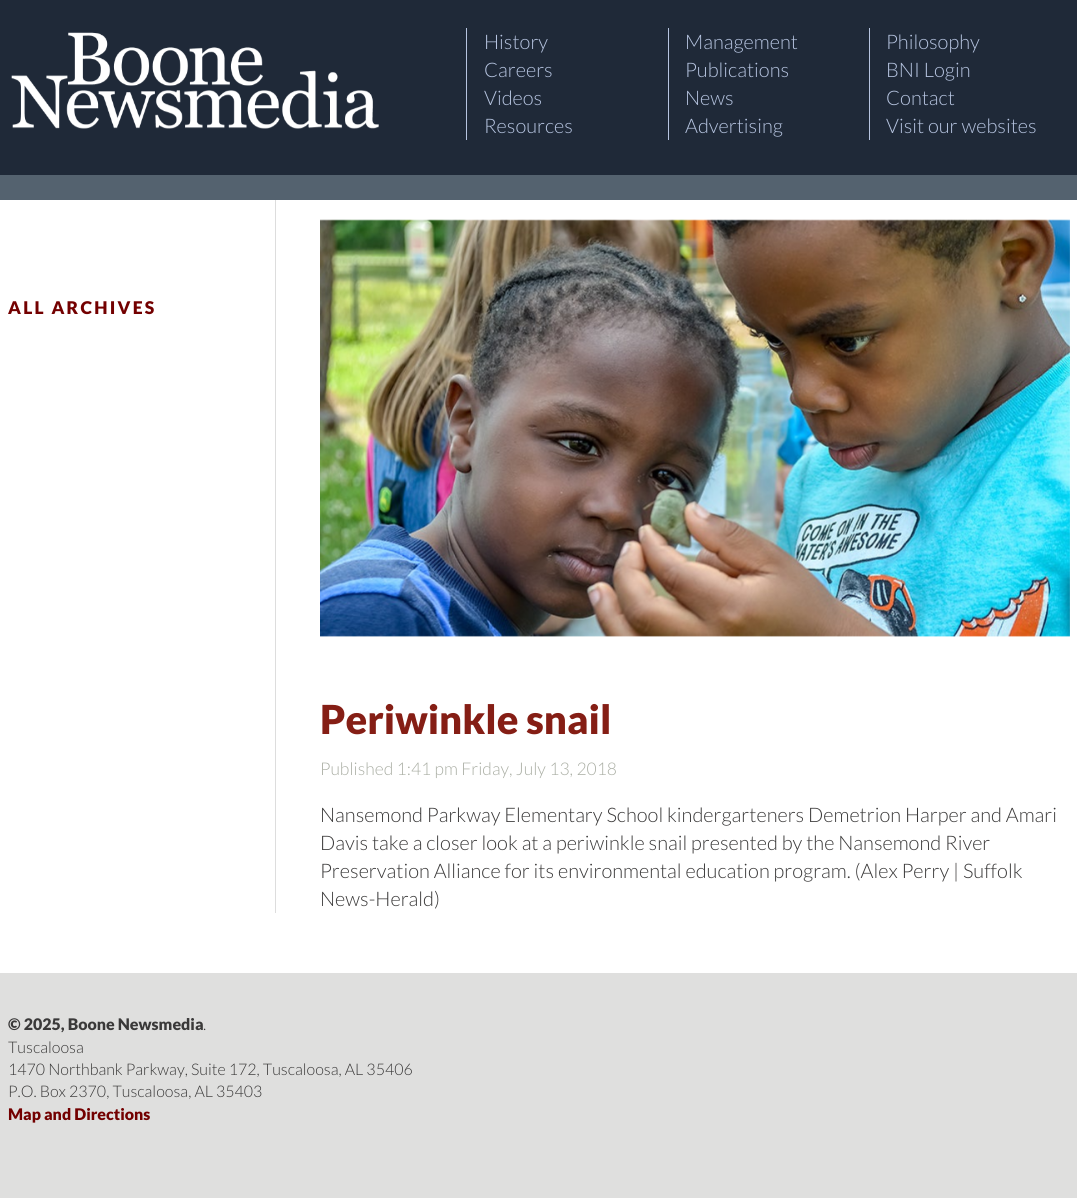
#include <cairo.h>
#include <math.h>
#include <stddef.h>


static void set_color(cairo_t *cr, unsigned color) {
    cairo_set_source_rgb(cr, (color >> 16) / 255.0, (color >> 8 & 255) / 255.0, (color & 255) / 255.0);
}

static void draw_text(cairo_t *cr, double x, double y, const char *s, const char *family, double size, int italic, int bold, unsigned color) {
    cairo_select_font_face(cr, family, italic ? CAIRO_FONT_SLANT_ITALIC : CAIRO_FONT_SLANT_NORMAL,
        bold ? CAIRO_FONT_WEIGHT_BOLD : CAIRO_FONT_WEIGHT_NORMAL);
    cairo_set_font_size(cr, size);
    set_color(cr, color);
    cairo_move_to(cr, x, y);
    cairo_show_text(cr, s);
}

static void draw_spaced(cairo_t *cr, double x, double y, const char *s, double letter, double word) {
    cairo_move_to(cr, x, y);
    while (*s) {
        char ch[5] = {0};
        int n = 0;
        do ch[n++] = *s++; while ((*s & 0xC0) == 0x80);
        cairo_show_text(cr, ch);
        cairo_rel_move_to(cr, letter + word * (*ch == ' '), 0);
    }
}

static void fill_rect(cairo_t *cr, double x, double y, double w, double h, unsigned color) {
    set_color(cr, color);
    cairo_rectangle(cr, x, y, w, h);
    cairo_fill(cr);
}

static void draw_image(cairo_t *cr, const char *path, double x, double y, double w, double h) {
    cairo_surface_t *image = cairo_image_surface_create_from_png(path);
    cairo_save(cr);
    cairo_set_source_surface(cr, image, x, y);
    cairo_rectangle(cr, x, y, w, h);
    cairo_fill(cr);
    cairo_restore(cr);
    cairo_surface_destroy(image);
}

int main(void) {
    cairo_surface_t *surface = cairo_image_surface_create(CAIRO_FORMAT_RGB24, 1077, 1198);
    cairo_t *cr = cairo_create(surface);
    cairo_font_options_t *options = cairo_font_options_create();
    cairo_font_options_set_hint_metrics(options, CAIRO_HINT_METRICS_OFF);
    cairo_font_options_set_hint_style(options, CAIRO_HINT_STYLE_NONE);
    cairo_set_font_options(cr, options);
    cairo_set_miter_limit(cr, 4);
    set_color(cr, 0xDFDFDE);
    cairo_paint(cr);
    fill_rect(cr, 0, 0, 1077, 175, 0x1F2938);
    draw_image(cr, "assets/img1.png", 11, 32, 368, 97);
    fill_rect(cr, 466, 28, 1, 112, 0xB6C4E0);
    draw_text(cr, 484, 49, "History", "Lato Light", 20, 0, 0, 0xB6C4E0);
    fill_rect(cr, 668, 28, 1, 112, 0xB6C4E0);
    draw_text(cr, 685, 49, "Management", "Lato Light", 20, 0, 0, 0xB6C4E0);
    fill_rect(cr, 869, 28, 1, 112, 0xB6C4E0);
    draw_text(cr, 886, 49, "Philosophy", "Lato Light", 20, 0, 0, 0xB6C4E0);
    draw_text(cr, 484, 77, "Careers", "Lato Light", 20, 0, 0, 0xB6C4E0);
    draw_text(cr, 685, 77, "Publications", "Lato Light", 20, 0, 0, 0xB6C4E0);
    draw_text(cr, 886, 77, "BNI Login", "Lato Light", 20, 0, 0, 0xB6C4E0);
    draw_text(cr, 484, 105, "Videos", "Lato Light", 20, 0, 0, 0xB6C4E0);
    draw_text(cr, 685, 105, "News", "Lato Light", 20, 0, 0, 0xB6C4E0);
    draw_text(cr, 886, 105, "Contact", "Lato Light", 20, 0, 0, 0xB6C4E0);
    draw_text(cr, 484, 133, "Resources", "Lato Light", 20, 0, 0, 0xB6C4E0);
    draw_text(cr, 685, 133, "Advertising", "Lato Light", 20, 0, 0, 0xB6C4E0);
    draw_text(cr, 886, 133, "Visit our websites", "Lato Light", 20, 0, 0, 0xB6C4E0);
    fill_rect(cr, 0, 200, 1077, 773, 0xFFFFFF);
    fill_rect(cr, 0, 175, 1077, 25, 0x54626F);
    cairo_select_font_face(cr, "Lato Black", CAIRO_FONT_SLANT_NORMAL, CAIRO_FONT_WEIGHT_NORMAL);
    cairo_set_font_size(cr, 17.5);
    set_color(cr, 0x730000);
    draw_spaced(cr, 8, 314, "ALL ARCHIVES", 2.25, 0);
    fill_rect(cr, 275, 200, 1, 713, 0xDDDDDD);
    draw_image(cr, "assets/img2.png", 320, 219, 750, 418);
    draw_text(cr, 320, 734, "Periwinkle snail", "Lato Black", 40, 0, 0, 0x851E15);
    draw_text(cr, 320, 775, "Published 1:41 pm Friday, July 13, 2018", "Lato Light", 17.5, 0, 0, 0xABAFA5);
    draw_text(cr, 320, 822, "Nansemond Parkway Elementary School kindergarteners Demetrion Harper and Amari", "Lato Light", 20, 0, 0, 0x3A3939);
    draw_text(cr, 320, 850, "Davis take a closer look at a periwinkle snail presented by the Nansemond River", "Lato Light", 20, 0, 0, 0x3A3939);
    draw_text(cr, 320, 878, "Preservation Alliance for its environmental education program. (Alex Perry | Suffolk", "Lato Light", 20, 0, 0, 0x3A3939);
    draw_text(cr, 320, 906, "News-Herald)", "Lato Light", 20, 0, 0, 0x3A3939);
    draw_text(cr, 8, 1030, "© 2025, Boone Newsmedia", "Lato Black", 16, 0, 0, 0x3A3939);
    draw_text(cr, 203, 1030, ".", "Lato Light", 16, 0, 0, 0x3A3939);
    draw_text(cr, 8, 1053, "Tuscaloosa", "Lato Light", 16, 0, 0, 0x3A3939);
    draw_text(cr, 8, 1075, "1470 Northbank Parkway, Suite 172, Tuscaloosa, AL 35406", "Lato Light", 16, 0, 0, 0x3A3939);
    draw_text(cr, 8, 1097, "P.O. Box 2370, Tuscaloosa, AL 35403", "Lato Light", 16, 0, 0, 0x3A3939);
    draw_text(cr, 8, 1120, "Map and Directions", "Lato Black", 16, 0, 0, 0x730000);
    cairo_surface_write_to_png(surface, "output.png");
    cairo_font_options_destroy(options);
    cairo_destroy(cr);
    cairo_surface_destroy(surface);
    return 0;
}
